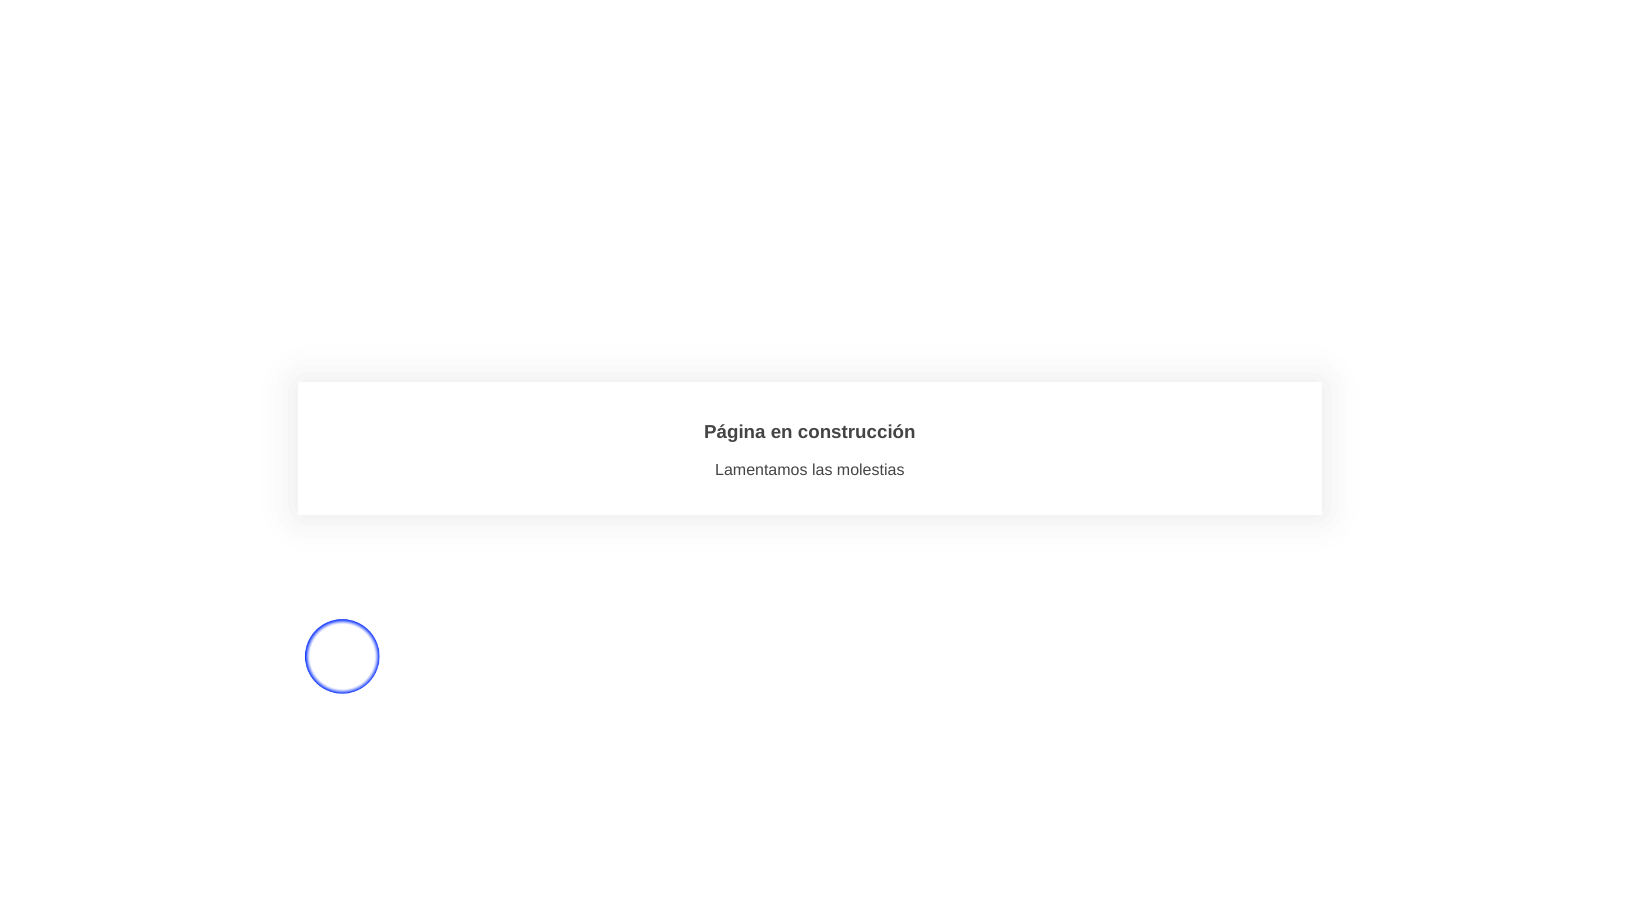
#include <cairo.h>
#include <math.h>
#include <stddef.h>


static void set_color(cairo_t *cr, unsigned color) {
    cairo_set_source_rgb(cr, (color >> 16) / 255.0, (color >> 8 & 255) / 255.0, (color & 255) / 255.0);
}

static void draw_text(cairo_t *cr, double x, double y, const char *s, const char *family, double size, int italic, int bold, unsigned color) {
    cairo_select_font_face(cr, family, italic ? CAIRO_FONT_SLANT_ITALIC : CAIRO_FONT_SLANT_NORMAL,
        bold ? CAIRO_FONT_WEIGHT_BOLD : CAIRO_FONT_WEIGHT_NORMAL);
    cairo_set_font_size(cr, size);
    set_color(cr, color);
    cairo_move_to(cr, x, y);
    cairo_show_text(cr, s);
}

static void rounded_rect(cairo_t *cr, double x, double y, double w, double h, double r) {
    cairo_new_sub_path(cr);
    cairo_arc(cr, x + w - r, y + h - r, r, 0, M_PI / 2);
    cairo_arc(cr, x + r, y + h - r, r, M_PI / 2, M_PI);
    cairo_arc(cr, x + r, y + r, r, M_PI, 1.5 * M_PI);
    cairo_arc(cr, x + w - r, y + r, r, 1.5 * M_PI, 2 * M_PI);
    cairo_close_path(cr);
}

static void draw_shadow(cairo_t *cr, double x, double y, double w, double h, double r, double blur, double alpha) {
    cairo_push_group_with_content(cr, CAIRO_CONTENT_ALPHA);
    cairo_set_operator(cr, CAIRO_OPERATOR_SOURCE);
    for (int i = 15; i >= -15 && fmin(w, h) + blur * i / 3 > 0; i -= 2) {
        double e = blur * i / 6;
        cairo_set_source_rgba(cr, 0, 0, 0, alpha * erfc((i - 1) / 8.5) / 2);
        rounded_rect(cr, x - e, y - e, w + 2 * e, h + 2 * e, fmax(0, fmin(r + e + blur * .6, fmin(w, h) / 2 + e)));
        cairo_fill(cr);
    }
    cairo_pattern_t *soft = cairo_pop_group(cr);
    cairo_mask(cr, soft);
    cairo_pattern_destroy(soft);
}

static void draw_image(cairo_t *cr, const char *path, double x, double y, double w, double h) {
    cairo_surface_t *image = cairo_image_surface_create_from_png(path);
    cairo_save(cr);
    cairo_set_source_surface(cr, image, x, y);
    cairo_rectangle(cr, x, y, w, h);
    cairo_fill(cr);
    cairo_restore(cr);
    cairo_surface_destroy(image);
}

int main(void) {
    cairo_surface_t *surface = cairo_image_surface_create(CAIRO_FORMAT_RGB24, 1652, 897);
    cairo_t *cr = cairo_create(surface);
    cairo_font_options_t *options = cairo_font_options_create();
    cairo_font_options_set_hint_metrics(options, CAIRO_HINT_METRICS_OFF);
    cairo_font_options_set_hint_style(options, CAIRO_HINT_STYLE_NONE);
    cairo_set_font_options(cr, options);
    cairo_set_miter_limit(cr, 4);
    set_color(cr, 0xFFFFFF);
    cairo_paint(cr);
    cairo_save(cr);
    cairo_set_fill_rule(cr, CAIRO_FILL_RULE_EVEN_ODD);
    cairo_new_path(cr);
    cairo_move_to(cr, 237, 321);
    cairo_line_to(cr, 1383, 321);
    cairo_line_to(cr, 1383, 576);
    cairo_line_to(cr, 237, 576);
    cairo_close_path(cr);
    cairo_move_to(cr, 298, 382);
    cairo_line_to(cr, 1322, 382);
    cairo_line_to(cr, 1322, 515);
    cairo_line_to(cr, 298, 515);
    cairo_close_path(cr);
    cairo_clip(cr);
    set_color(cr, 0x000000);
    draw_shadow(cr, 298, 382, 1024, 133, 0, 20, 0.1);
    cairo_restore(cr);
    draw_text(cr, 704, 438, "Página en construcción", "Liberation Sans", 18.75, 0, 1, 0x444444);
    draw_text(cr, 715, 475, "Lamentamos las molestias", "Liberation Sans", 16, 0, 0, 0x444444);
    draw_image(cr, "assets/img1.png", 305, 619, 75, 75);
    cairo_surface_write_to_png(surface, "output.png");
    cairo_font_options_destroy(options);
    cairo_destroy(cr);
    cairo_surface_destroy(surface);
    return 0;
}
